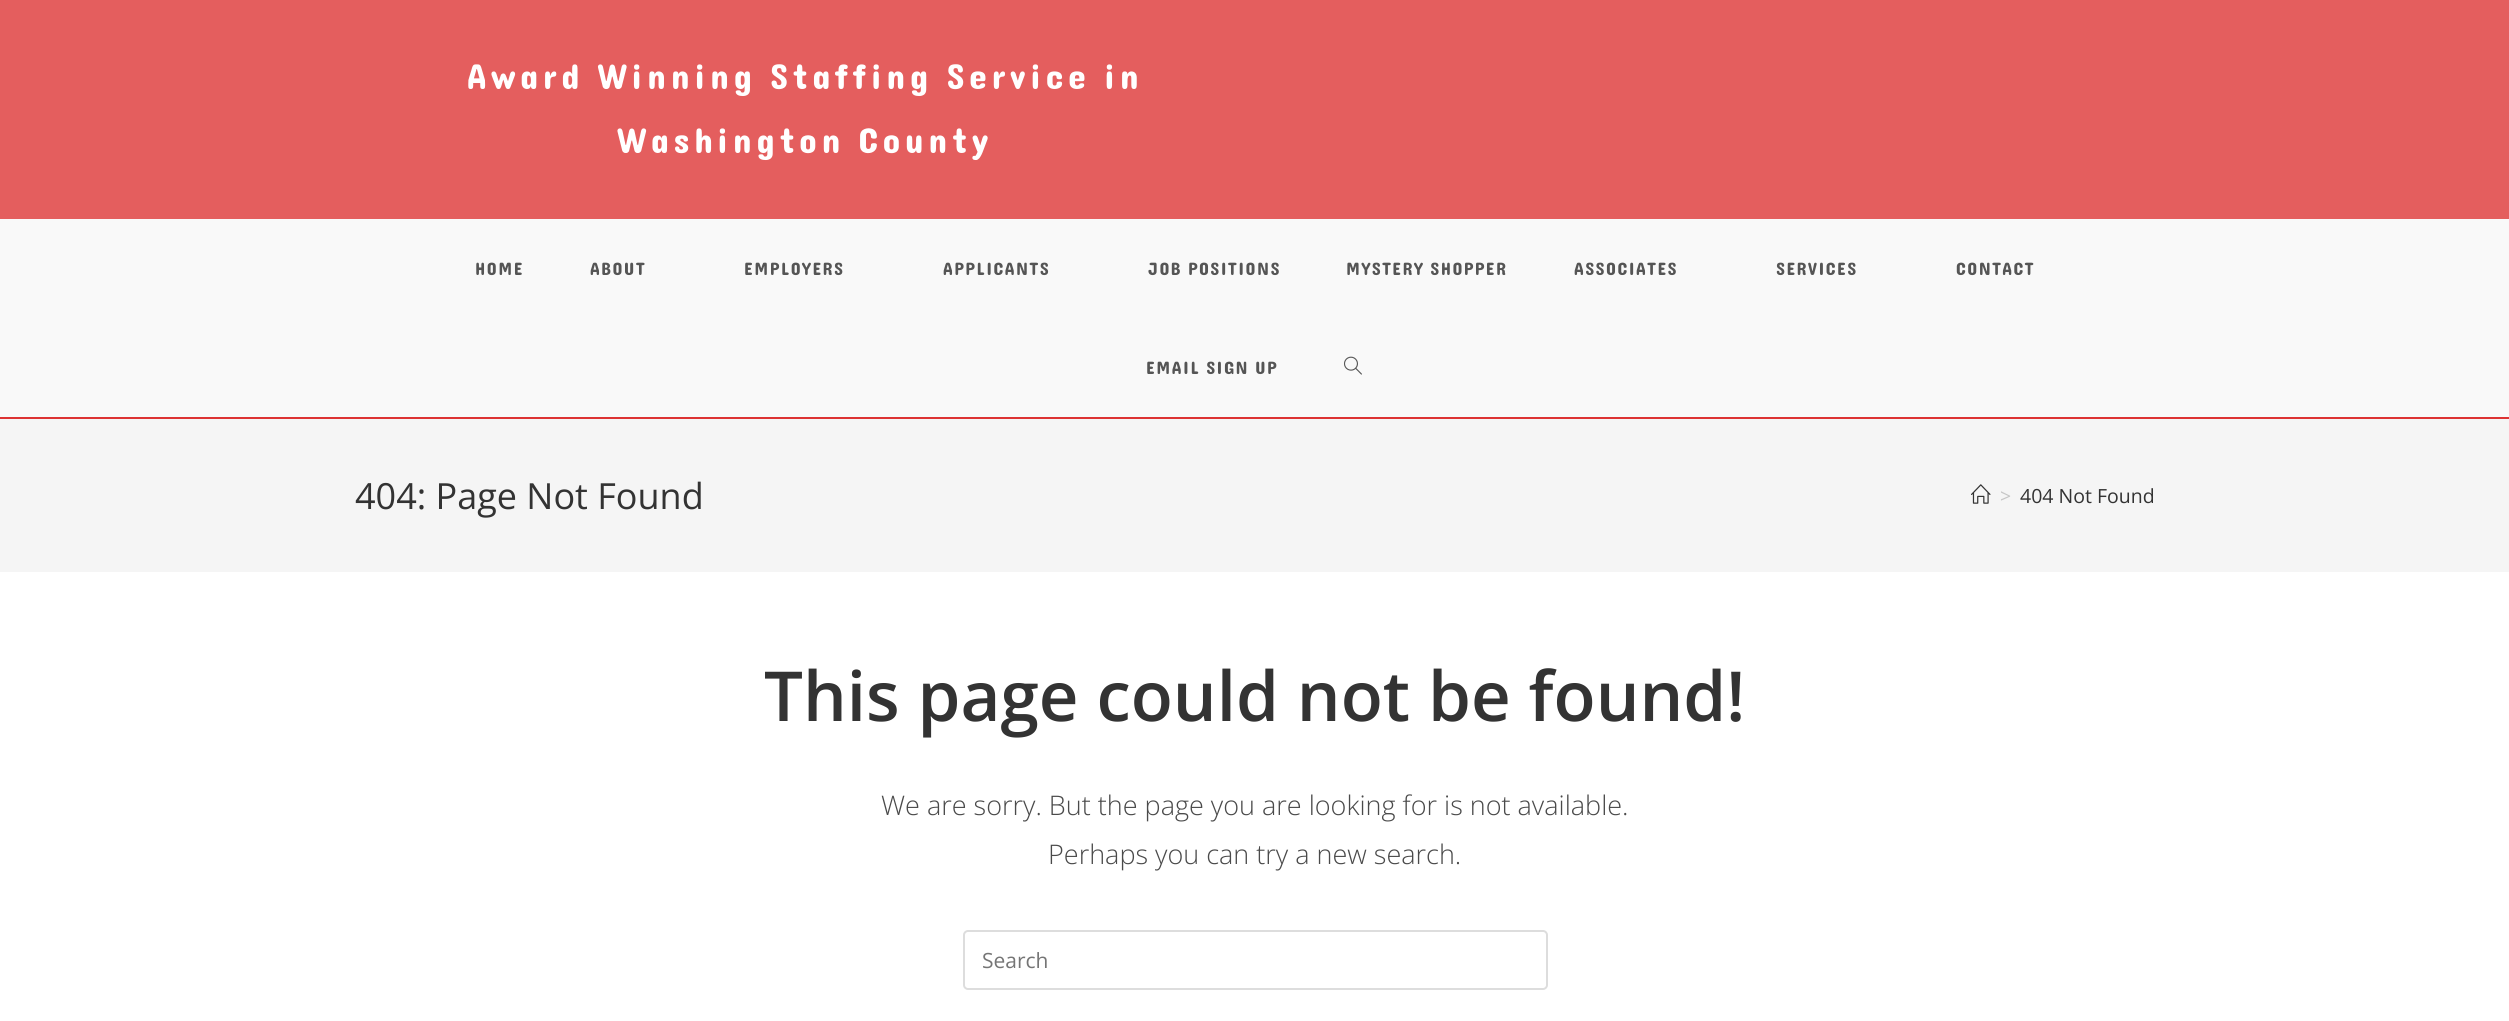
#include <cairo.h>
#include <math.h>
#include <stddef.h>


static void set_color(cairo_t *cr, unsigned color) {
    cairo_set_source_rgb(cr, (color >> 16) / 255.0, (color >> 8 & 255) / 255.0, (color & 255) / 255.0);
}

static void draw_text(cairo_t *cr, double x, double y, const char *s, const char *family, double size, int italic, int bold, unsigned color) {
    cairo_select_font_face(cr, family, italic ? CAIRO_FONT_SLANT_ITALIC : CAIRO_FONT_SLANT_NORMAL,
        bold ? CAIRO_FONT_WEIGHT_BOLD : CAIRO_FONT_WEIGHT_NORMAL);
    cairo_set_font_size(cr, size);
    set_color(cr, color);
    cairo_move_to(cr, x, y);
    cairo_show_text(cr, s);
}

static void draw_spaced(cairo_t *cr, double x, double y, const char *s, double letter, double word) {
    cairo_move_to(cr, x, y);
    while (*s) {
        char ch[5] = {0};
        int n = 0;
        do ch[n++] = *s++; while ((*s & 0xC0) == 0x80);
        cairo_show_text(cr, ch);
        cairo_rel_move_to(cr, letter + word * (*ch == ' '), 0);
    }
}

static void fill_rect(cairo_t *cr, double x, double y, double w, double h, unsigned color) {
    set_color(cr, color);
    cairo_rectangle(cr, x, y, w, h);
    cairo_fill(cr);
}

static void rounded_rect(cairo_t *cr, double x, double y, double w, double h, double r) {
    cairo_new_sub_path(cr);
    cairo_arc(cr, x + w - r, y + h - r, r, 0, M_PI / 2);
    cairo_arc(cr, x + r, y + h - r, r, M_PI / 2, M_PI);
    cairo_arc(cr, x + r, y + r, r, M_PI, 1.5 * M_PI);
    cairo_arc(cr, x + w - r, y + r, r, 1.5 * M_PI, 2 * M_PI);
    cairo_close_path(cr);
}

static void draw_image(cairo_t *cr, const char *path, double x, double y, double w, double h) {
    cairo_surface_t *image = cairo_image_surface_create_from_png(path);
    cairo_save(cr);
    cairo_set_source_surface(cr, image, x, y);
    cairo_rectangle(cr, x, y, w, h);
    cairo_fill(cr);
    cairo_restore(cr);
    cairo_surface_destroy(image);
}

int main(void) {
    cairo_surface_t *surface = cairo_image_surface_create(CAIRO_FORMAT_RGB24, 2509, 1021);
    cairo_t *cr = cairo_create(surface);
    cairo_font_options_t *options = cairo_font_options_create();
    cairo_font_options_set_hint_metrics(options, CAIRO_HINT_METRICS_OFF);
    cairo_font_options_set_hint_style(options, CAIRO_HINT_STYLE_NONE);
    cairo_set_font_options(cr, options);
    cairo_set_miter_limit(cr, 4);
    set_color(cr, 0xFFFFFF);
    cairo_paint(cr);
    fill_rect(cr, 0, 417, 2509, 2, 0xDD3333);
    fill_rect(cr, 0, 0, 2509, 219, 0xE45E5E);
    cairo_select_font_face(cr, "Dangrek", CAIRO_FONT_SLANT_NORMAL, CAIRO_FONT_WEIGHT_NORMAL);
    cairo_set_font_size(cr, 36);
    set_color(cr, 0xFFFFFF);
    draw_spaced(cr, 467, 89, "Award Winning Staffing Service in", 4.65, 0);
    draw_spaced(cr, 617, 153, "Washington County", 4.65, 0);
    fill_rect(cr, 0, 219, 2509, 198, 0xF9F9F9);
    cairo_set_font_size(cr, 18);
    set_color(cr, 0x555555);
    draw_spaced(cr, 475, 275, "HOME", 1.5, 0);
    draw_spaced(cr, 590, 275, "ABOUT", 1.5, 0);
    draw_spaced(cr, 744, 275, "EMPLOYERS", 1.5, 0);
    draw_spaced(cr, 943, 275, "APPLICANTS", 1.5, 0);
    draw_spaced(cr, 1148, 275, "JOB POSITIONS", 1.5, 0);
    draw_spaced(cr, 1346, 275, "MYSTERY SHOPPER", 1.5, 0);
    draw_spaced(cr, 1574, 275, "ASSOCIATES", 1.5, 0);
    draw_spaced(cr, 1776, 275, "SERVICES", 1.5, 0);
    draw_spaced(cr, 1956, 275, "CONTACT", 1.5, 0);
    draw_spaced(cr, 1146, 374, "EMAIL SIGN UP", 1.5, 0);
    draw_image(cr, "assets/img1.png", 1344, 356, 18, 19);
    fill_rect(cr, 0, 419, 2509, 153, 0xF5F5F5);
    draw_text(cr, 355, 509, "404: Page Not Found", "Open Sans", 36, 0, 0, 0x333333);
    draw_image(cr, "assets/img2.png", 1971, 484, 20, 20);
    draw_text(cr, 2000, 503, ">", "Open Sans", 19.5, 0, 0, 0xC6C6C6);
    draw_text(cr, 2020, 503, "404 Not Found", "Open Sans", 19.5, 0, 0, 0x333333);
    draw_text(cr, 764, 721, "This page could not be found!", "Open Sans SemiBold", 69, 0, 0, 0x333333);
    draw_text(cr, 881, 815, "We are sorry. But the page you are looking for is not available.", "Open Sans Light", 27, 0, 0, 0x4A4A4A);
    draw_text(cr, 1048, 864, "Perhaps you can try a new search.", "Open Sans Light", 27, 0, 0, 0x4A4A4A);
    rounded_rect(cr, 964, 931, 583, 58, 4);
    set_color(cr, 0xDDDDDD);
    cairo_stroke(cr);
    draw_text(cr, 982, 968, "Search", "Open Sans", 21, 0, 0, 0x757575);
    cairo_surface_write_to_png(surface, "output.png");
    cairo_font_options_destroy(options);
    cairo_destroy(cr);
    cairo_surface_destroy(surface);
    return 0;
}
